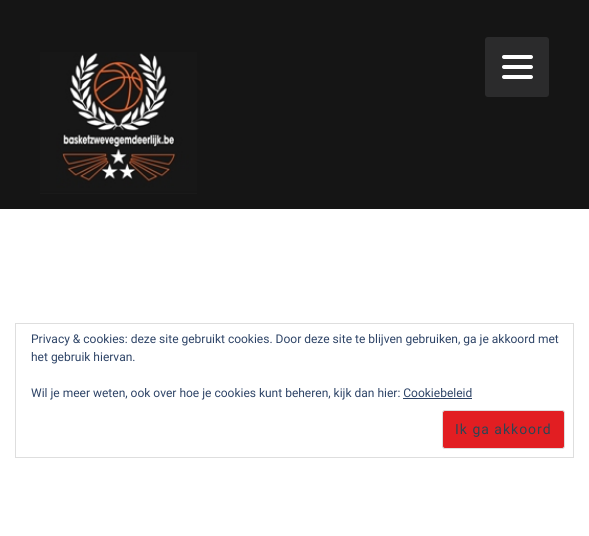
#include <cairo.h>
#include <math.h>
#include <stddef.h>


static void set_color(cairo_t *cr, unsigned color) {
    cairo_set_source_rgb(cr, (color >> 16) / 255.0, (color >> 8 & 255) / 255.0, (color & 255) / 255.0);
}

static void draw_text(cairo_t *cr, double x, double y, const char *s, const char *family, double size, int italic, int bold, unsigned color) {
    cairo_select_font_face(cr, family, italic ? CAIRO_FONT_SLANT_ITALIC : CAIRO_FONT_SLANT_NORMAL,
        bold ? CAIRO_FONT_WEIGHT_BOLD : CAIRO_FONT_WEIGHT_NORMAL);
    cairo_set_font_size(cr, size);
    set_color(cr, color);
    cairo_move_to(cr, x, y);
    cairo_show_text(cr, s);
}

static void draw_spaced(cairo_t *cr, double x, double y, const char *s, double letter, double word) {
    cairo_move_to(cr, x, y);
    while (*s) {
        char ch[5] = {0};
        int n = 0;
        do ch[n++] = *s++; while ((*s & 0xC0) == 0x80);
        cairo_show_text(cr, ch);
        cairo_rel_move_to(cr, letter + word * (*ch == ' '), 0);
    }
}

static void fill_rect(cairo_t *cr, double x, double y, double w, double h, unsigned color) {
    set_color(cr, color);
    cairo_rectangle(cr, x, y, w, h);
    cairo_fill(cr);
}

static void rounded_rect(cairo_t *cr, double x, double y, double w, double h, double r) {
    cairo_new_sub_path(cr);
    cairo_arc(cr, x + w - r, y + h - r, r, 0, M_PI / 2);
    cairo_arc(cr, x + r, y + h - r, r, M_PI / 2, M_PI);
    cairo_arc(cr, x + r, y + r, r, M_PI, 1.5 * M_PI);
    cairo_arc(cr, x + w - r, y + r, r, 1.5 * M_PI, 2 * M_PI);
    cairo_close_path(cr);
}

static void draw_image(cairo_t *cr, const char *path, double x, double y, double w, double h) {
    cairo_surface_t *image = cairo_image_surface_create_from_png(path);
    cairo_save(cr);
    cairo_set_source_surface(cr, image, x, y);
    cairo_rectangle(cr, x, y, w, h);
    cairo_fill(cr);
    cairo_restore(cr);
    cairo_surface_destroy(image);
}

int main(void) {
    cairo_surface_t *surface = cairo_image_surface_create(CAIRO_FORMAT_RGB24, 589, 536);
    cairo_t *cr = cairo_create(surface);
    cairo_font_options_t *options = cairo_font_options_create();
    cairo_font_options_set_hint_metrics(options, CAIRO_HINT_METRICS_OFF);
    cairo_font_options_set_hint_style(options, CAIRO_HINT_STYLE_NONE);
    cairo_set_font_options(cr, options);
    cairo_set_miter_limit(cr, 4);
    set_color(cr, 0xFFFFFF);
    cairo_paint(cr);
    fill_rect(cr, 0, 0, 589, 209, 0x151515);
    draw_image(cr, "assets/img1.png", 40, 52, 157, 142);
    set_color(cr, 0x2B2B2C);
    rounded_rect(cr, 485, 37, 64, 60, 3);
    cairo_fill(cr);
    set_color(cr, 0xFFFFFF);
    rounded_rect(cr, 502, 55, 31, 4, 2);
    cairo_fill(cr);
    rounded_rect(cr, 502, 65, 31, 4, 2);
    cairo_fill(cr);
    rounded_rect(cr, 502, 75, 31, 4, 2);
    cairo_fill(cr);
    cairo_rectangle(cr, 15.5, 323.5, 558, 134);
    set_color(cr, 0xDEDEDE);
    cairo_set_line_width(cr, 1);
    cairo_stroke(cr);
    draw_text(cr, 31, 343, "Privacy & cookies: deze site gebruikt cookies. Door deze site te blijven gebruiken, ga je akkoord met", "Roboto", 12, 0, 0, 0x2E4467);
    draw_text(cr, 31, 361, "het gebruik hiervan.", "Roboto", 12, 0, 0, 0x2E4467);
    draw_text(cr, 31, 397, "Wil je meer weten, ook over hoe je cookies kunt beheren, kijk dan hier: Cookiebeleid", "Roboto", 12, 0, 0, 0x2E4467);
    fill_rect(cr, 403, 398, 69, 1, 0x2E4467);
    set_color(cr, 0xE21E22);
    rounded_rect(cr, 442.5, 410.5, 122, 38, 2.5);
    cairo_fill_preserve(cr);
    set_color(cr, 0xDEDEDE);
    cairo_stroke(cr);
    cairo_set_font_size(cr, 14);
    set_color(cr, 0x2E4453);
    draw_spaced(cr, 455, 434, "Ik ga akkoord", 1, 0);
    cairo_surface_write_to_png(surface, "output.png");
    cairo_font_options_destroy(options);
    cairo_destroy(cr);
    cairo_surface_destroy(surface);
    return 0;
}
